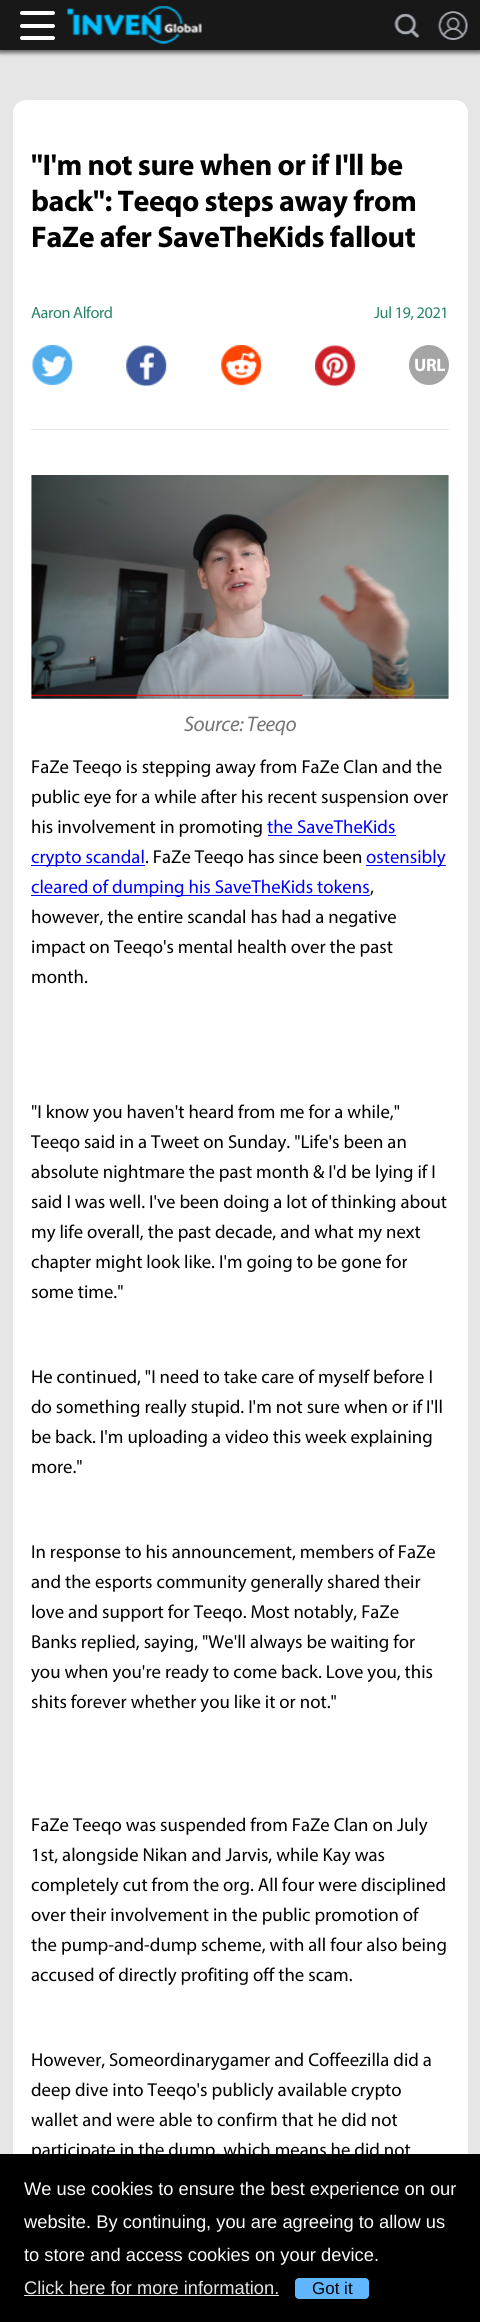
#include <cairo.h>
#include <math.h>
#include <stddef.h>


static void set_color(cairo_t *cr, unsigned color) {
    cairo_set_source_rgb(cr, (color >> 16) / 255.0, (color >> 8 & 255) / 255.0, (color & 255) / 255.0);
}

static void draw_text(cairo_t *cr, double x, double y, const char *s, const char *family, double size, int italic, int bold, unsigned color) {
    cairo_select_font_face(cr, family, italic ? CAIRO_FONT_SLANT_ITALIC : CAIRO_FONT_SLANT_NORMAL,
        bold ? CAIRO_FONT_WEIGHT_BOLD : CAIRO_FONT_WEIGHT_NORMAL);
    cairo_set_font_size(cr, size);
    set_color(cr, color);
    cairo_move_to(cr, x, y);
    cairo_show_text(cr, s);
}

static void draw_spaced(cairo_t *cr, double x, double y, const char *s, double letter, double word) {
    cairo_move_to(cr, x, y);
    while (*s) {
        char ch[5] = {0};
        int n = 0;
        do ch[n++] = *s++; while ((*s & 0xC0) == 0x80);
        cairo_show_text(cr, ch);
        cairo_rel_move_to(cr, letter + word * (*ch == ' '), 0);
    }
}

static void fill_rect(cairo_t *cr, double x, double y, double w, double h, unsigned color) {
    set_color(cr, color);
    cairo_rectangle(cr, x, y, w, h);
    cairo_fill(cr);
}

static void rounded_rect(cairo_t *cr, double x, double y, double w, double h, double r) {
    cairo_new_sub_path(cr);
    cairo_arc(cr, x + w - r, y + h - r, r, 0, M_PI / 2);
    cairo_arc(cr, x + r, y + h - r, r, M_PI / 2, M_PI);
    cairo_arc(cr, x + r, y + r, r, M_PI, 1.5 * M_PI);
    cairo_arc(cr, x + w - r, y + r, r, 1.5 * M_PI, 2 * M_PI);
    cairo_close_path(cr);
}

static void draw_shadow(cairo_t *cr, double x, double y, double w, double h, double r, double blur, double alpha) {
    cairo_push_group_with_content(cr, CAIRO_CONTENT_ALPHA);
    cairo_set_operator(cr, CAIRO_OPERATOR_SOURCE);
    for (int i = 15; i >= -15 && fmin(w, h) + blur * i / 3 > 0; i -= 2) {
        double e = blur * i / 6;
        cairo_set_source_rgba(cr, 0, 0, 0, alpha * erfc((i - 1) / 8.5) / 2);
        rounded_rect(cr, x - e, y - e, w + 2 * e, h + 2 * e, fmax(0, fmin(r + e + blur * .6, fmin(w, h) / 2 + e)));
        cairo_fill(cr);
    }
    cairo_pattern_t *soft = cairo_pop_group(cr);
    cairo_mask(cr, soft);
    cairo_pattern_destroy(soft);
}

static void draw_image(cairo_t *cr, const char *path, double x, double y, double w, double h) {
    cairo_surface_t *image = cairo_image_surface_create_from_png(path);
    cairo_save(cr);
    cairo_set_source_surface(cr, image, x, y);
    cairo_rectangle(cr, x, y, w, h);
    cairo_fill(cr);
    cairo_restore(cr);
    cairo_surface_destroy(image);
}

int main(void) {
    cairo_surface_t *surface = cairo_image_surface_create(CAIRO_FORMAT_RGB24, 480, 2322);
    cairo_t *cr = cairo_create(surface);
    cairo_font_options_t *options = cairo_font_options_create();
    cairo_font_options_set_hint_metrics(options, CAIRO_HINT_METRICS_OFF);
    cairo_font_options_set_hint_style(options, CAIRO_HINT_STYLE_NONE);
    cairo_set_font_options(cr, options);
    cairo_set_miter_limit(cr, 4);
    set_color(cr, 0xE6E6E6);
    cairo_paint(cr);
    set_color(cr, 0x464646);
    draw_shadow(cr, -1, 0, 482, 53, 0, 2, 0.8);
    fill_rect(cr, 0, 0, 480, 50, 0x181818);
    set_color(cr, 0xFFFFFF);
    rounded_rect(cr, 20, 11, 35, 4, 2);
    cairo_fill(cr);
    rounded_rect(cr, 20, 24, 35, 4, 2);
    cairo_fill(cr);
    rounded_rect(cr, 20, 36, 35, 4, 2);
    cairo_fill(cr);
    draw_image(cr, "assets/img1.png", 67, 6, 135, 38);
    draw_image(cr, "assets/img2.png", 394, 13, 26, 25);
    draw_image(cr, "assets/img3.png", 438, 11, 30, 29);
    rounded_rect(cr, 13, 100, 455, 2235, 13);
    cairo_fill(cr);
    fill_rect(cr, 31, 429, 418, 1, 0xE5E5E5);
    cairo_select_font_face(cr, "Myriad", CAIRO_FONT_SLANT_NORMAL, CAIRO_FONT_WEIGHT_BOLD);
    cairo_set_font_size(cr, 30);
    set_color(cr, 0x000000);
    draw_spaced(cr, 31, 175, "\"I'm not sure when or if I'll be", -0.4, 0);
    draw_spaced(cr, 31, 211, "back\": Teeqo steps away from", -0.4, 0);
    draw_spaced(cr, 31, 247, "FaZe afer SaveTheKids fallout", -0.4, 0);
    cairo_select_font_face(cr, "Myriad", CAIRO_FONT_SLANT_NORMAL, CAIRO_FONT_WEIGHT_NORMAL);
    cairo_set_font_size(cr, 16.25);
    set_color(cr, 0x2A836A);
    draw_spaced(cr, 31, 318, "Aaron Alford", -0.4, 0);
    draw_spaced(cr, 374, 318, "Jul 19, 2021", -0.4, 0);
    draw_image(cr, "assets/img4.png", 32, 345, 41, 40);
    draw_image(cr, "assets/img5.png", 126, 345, 41, 42);
    draw_image(cr, "assets/img6.png", 221, 345, 41, 41);
    draw_image(cr, "assets/img7.png", 315, 345, 40, 42);
    set_color(cr, 0xA5A5A5);
    cairo_arc(cr, 429, 365, 20, 0, 2 * M_PI);
    cairo_fill(cr);
    cairo_select_font_face(cr, "Myriad", CAIRO_FONT_SLANT_NORMAL, CAIRO_FONT_WEIGHT_BOLD);
    cairo_set_font_size(cr, 18);
    set_color(cr, 0xFFFFFF);
    draw_spaced(cr, 414, 371, "URL", -0.4, 0);
    draw_image(cr, "assets/img8.png", 31, 475, 418, 224);
    cairo_select_font_face(cr, "Myriad", CAIRO_FONT_SLANT_ITALIC, CAIRO_FONT_WEIGHT_NORMAL);
    cairo_set_font_size(cr, 21.25);
    set_color(cr, 0x757575);
    draw_spaced(cr, 184, 731, "Source: Teeqo", -0.4, 0);
    draw_text(cr, 31, 773, "FaZe Teeqo is stepping away from FaZe Clan and the", "Myriad", 18.75, 0, 0, 0x000000);
    draw_text(cr, 31, 803, "public eye for a while after his recent suspension over", "Myriad", 18.75, 0, 0, 0x000000);
    draw_text(cr, 31, 833, "his involvement in promoting", "Myriad", 18.75, 0, 0, 0x000000);
    draw_text(cr, 267, 833, "the SaveTheKids", "Myriad", 18.75, 0, 0, 0x0000FF);
    fill_rect(cr, 268, 835, 128, 1, 0x0000FF);
    fill_rect(cr, 31, 865, 114, 1, 0x0000FF);
    draw_text(cr, 31, 863, "crypto scandal", "Myriad", 18.75, 0, 0, 0x0000FF);
    draw_text(cr, 145, 863, ". FaZe Teeqo has since been", "Myriad", 18.75, 0, 0, 0x000000);
    fill_rect(cr, 366, 865, 80, 1, 0x0000FF);
    draw_text(cr, 366, 863, "ostensibly", "Myriad", 18.75, 0, 0, 0x0000FF);
    fill_rect(cr, 31, 895, 339, 1, 0x0000FF);
    draw_text(cr, 31, 893, "cleared of dumping his SaveTheKids tokens", "Myriad", 18.75, 0, 0, 0x0000FF);
    draw_text(cr, 370, 893, ",", "Myriad", 18.75, 0, 0, 0x000000);
    draw_text(cr, 31, 923, "however, the entire scandal has had a negative", "Myriad", 18.75, 0, 0, 0x000000);
    draw_text(cr, 31, 953, "impact on Teeqo's mental health over the past", "Myriad", 18.75, 0, 0, 0x000000);
    draw_text(cr, 31, 983, "month.", "Myriad", 18.75, 0, 0, 0x000000);
    draw_text(cr, 31, 1118, "\"I know you haven't heard from me for a while,\"", "Myriad", 18.75, 0, 0, 0x000000);
    draw_text(cr, 31, 1148, "Teeqo said in a Tweet on Sunday. \"Life's been an", "Myriad", 18.75, 0, 0, 0x000000);
    draw_text(cr, 31, 1178, "absolute nightmare the past month & I'd be lying if I", "Myriad", 18.75, 0, 0, 0x000000);
    draw_text(cr, 31, 1208, "said I was well. I've been doing a lot of thinking about", "Myriad", 18.75, 0, 0, 0x000000);
    draw_text(cr, 31, 1238, "my life overall, the past decade, and what my next", "Myriad", 18.75, 0, 0, 0x000000);
    draw_text(cr, 31, 1268, "chapter might look like. I'm going to be gone for", "Myriad", 18.75, 0, 0, 0x000000);
    draw_text(cr, 31, 1298, "some time.\"", "Myriad", 18.75, 0, 0, 0x000000);
    draw_text(cr, 31, 1383, "He continued, \"I need to take care of myself before I", "Myriad", 18.75, 0, 0, 0x000000);
    draw_text(cr, 31, 1413, "do something really stupid. I'm not sure when or if I'll", "Myriad", 18.75, 0, 0, 0x000000);
    draw_text(cr, 31, 1443, "be back. I'm uploading a video this week explaining", "Myriad", 18.75, 0, 0, 0x000000);
    draw_text(cr, 31, 1473, "more.\"", "Myriad", 18.75, 0, 0, 0x000000);
    draw_text(cr, 31, 1558, "In response to his announcement, members of FaZe", "Myriad", 18.75, 0, 0, 0x000000);
    draw_text(cr, 31, 1588, "and the esports community generally shared their", "Myriad", 18.75, 0, 0, 0x000000);
    draw_text(cr, 31, 1618, "love and support for Teeqo. Most notably, FaZe", "Myriad", 18.75, 0, 0, 0x000000);
    draw_text(cr, 31, 1648, "Banks replied, saying, \"We'll always be waiting for", "Myriad", 18.75, 0, 0, 0x000000);
    draw_text(cr, 31, 1678, "you when you're ready to come back. Love you, this", "Myriad", 18.75, 0, 0, 0x000000);
    draw_text(cr, 31, 1708, "shits forever whether you like it or not.\"", "Myriad", 18.75, 0, 0, 0x000000);
    draw_text(cr, 31, 1831, "FaZe Teeqo was suspended from FaZe Clan on July", "Myriad", 18.75, 0, 0, 0x000000);
    draw_text(cr, 31, 1861, "1st, alongside Nikan and Jarvis, while Kay was", "Myriad", 18.75, 0, 0, 0x000000);
    draw_text(cr, 31, 1891, "completely cut from the org. All four were disciplined", "Myriad", 18.75, 0, 0, 0x000000);
    draw_text(cr, 31, 1921, "over their involvement in the public promotion of", "Myriad", 18.75, 0, 0, 0x000000);
    draw_text(cr, 31, 1951, "the pump-and-dump scheme, with all four also being", "Myriad", 18.75, 0, 0, 0x000000);
    draw_text(cr, 31, 1981, "accused of directly profiting off the scam.", "Myriad", 18.75, 0, 0, 0x000000);
    draw_text(cr, 31, 2066, "However, Someordinarygamer and Coffeezilla did a", "Myriad", 18.75, 0, 0, 0x000000);
    draw_text(cr, 31, 2096, "deep dive into Teeqo's publicly available crypto", "Myriad", 18.75, 0, 0, 0x000000);
    draw_text(cr, 31, 2126, "wallet and were able to confirm that he did not", "Myriad", 18.75, 0, 0, 0x000000);
    draw_text(cr, 31, 2156, "participate in the dump, which means he did not", "Myriad", 18.75, 0, 0, 0x000000);
    fill_rect(cr, 0, 2154, 480, 168, 0x000000);
    draw_text(cr, 24, 2195, "We use cookies to ensure the best experience on our", "Liberation Sans", 18.3, 0, 0, 0xFFFFFF);
    draw_text(cr, 24, 2228, "website. By continuing, you are agreeing to allow us", "Liberation Sans", 18.3, 0, 0, 0xFFFFFF);
    draw_text(cr, 24, 2261, "to store and access cookies on your device.", "Liberation Sans", 18.3, 0, 0, 0xFFFFFF);
    draw_text(cr, 24, 2294, "Click here for more information.", "Liberation Sans", 18.3, 0, 0, 0xE6E6E6);
    fill_rect(cr, 24, 2295, 255, 1, 0xE6E6E6);
    set_color(cr, 0x61B7FF);
    rounded_rect(cr, 295, 2278, 74, 21, 4);
    cairo_fill(cr);
    draw_text(cr, 312, 2294, "Got it", "Liberation Sans", 17, 0, 0, 0x000000);
    cairo_surface_write_to_png(surface, "output.png");
    cairo_font_options_destroy(options);
    cairo_destroy(cr);
    cairo_surface_destroy(surface);
    return 0;
}
